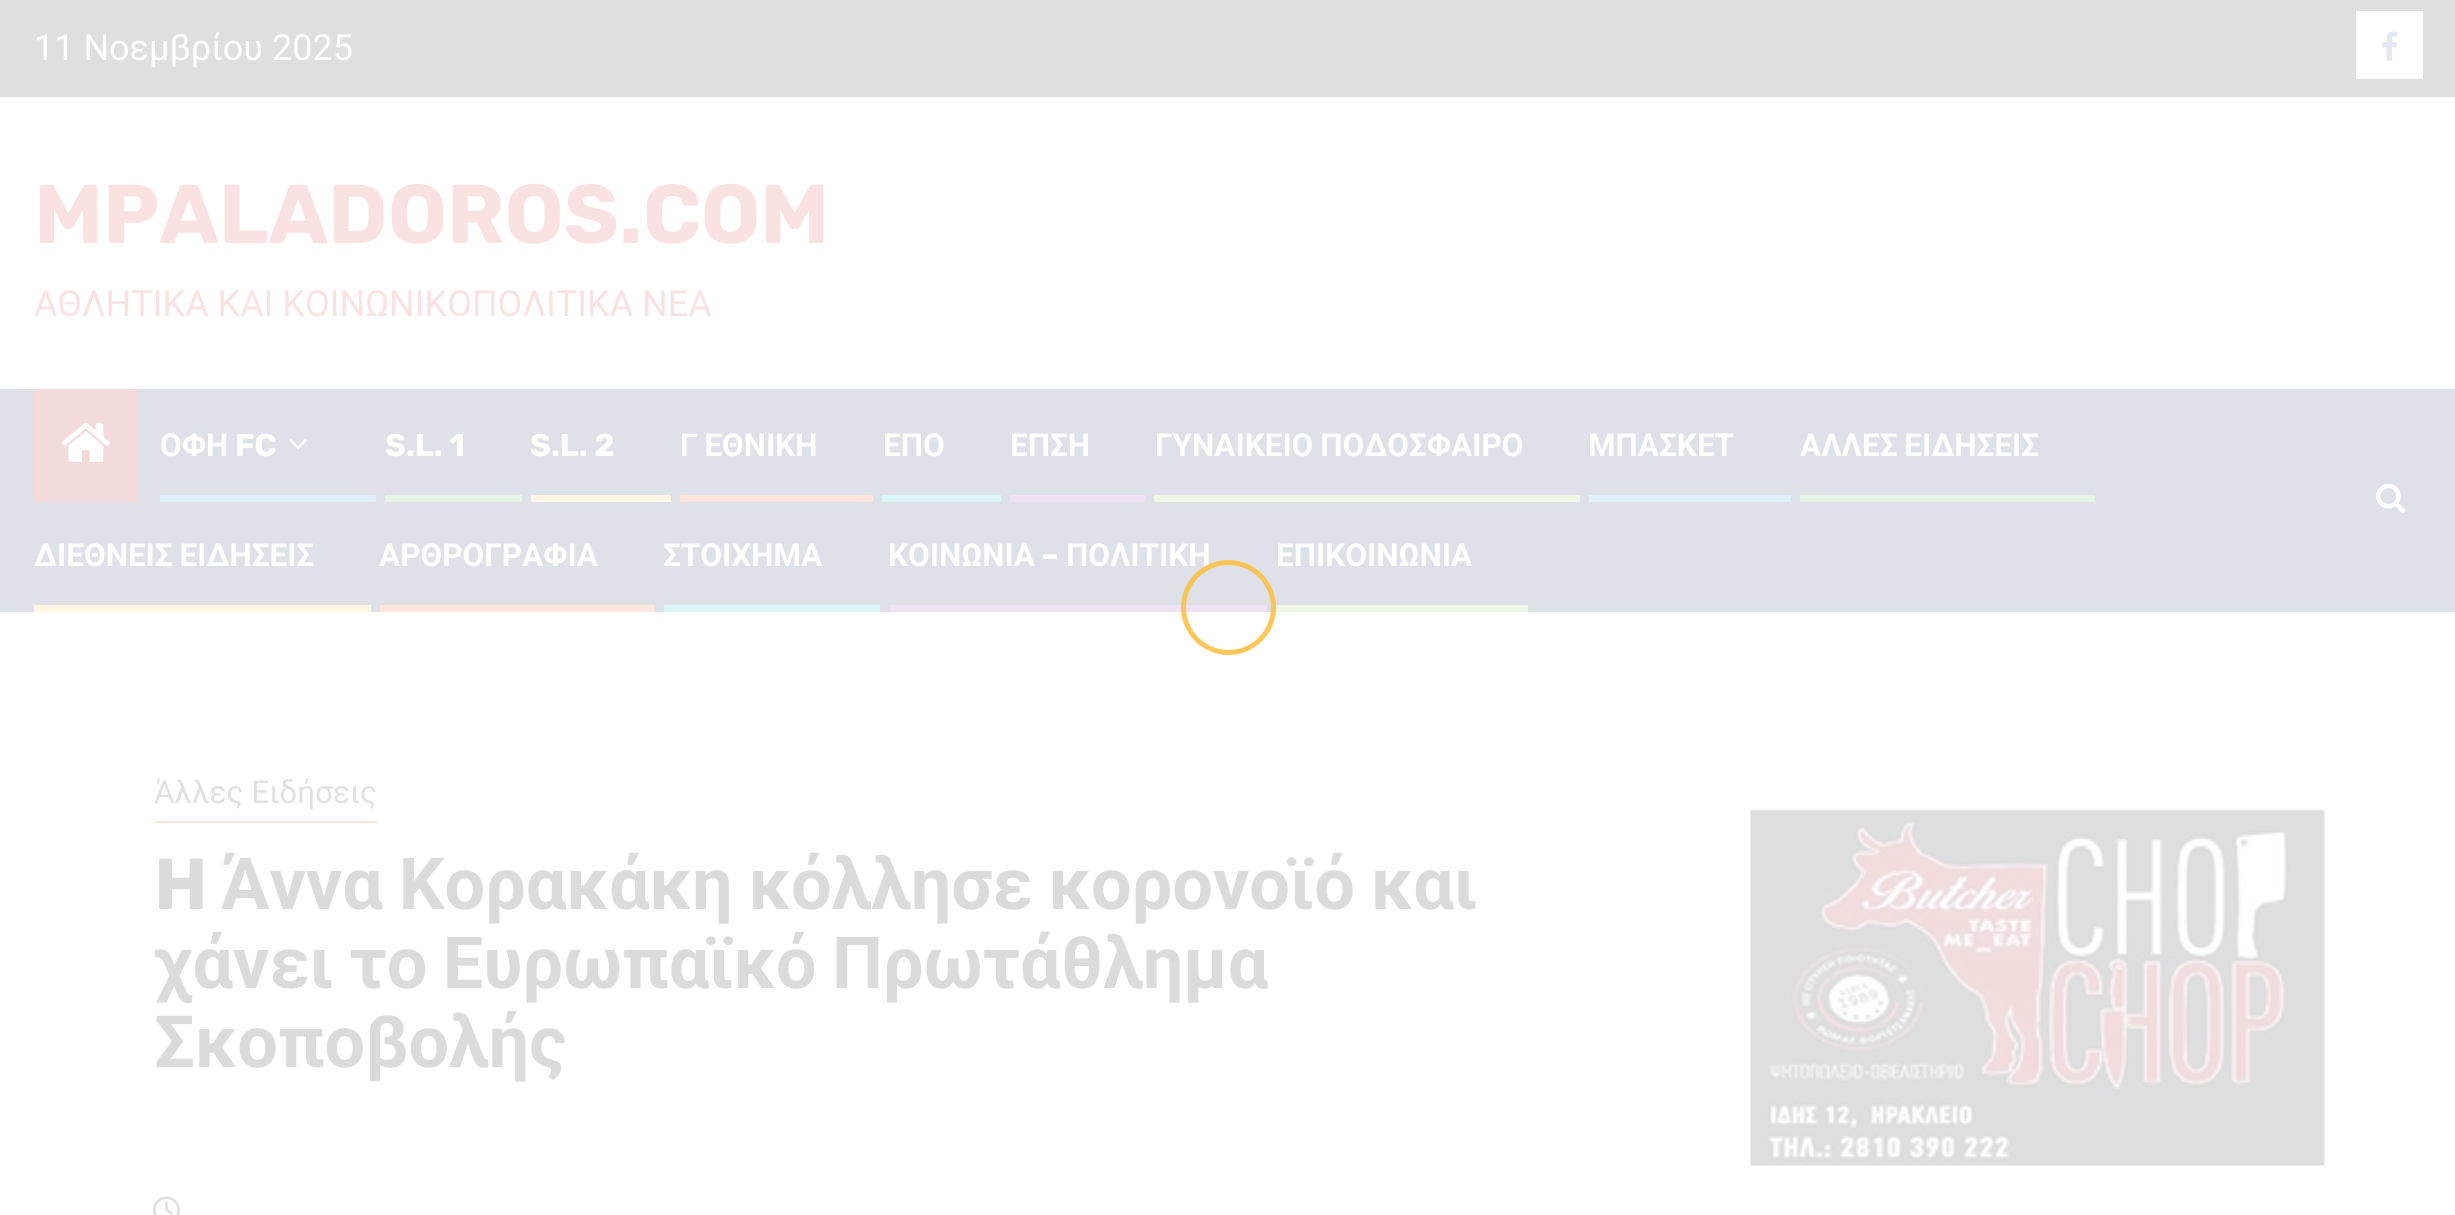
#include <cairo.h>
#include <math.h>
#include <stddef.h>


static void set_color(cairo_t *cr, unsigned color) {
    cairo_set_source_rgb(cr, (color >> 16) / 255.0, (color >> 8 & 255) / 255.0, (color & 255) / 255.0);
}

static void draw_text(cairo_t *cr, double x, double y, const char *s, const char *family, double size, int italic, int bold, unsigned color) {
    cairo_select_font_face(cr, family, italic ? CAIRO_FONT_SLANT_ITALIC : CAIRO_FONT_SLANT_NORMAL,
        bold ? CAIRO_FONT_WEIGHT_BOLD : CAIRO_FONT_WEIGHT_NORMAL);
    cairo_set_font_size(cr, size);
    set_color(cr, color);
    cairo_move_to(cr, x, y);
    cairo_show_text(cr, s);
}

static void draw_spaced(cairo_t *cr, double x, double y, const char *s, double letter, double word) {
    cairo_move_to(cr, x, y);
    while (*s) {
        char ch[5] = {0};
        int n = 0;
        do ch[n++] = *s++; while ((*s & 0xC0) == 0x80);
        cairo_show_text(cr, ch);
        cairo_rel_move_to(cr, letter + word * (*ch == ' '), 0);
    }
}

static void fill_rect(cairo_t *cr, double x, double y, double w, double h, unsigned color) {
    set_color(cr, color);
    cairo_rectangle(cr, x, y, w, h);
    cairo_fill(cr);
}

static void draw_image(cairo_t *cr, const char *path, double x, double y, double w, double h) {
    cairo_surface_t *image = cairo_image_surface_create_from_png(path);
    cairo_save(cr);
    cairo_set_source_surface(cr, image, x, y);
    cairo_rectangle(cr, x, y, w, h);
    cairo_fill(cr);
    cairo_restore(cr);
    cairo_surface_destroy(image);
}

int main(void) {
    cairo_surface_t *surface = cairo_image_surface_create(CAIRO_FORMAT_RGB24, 2455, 1215);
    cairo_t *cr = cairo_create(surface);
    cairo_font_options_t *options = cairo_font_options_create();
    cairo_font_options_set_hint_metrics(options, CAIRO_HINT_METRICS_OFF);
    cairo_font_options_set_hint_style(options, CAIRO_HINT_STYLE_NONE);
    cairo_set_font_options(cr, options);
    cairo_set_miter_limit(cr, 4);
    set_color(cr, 0xFFFFFF);
    cairo_paint(cr);
    fill_rect(cr, 0, 0, 2455, 97, 0xDFDFDF);
    draw_text(cr, 34, 60, "11 Νοεμβρίου 2025", "Roboto", 36, 0, 0, 0xFFFFFF);
    fill_rect(cr, 2356, 11, 67, 68, 0xFFFFFF);
    draw_image(cr, "assets/img1.png", 2382, 31, 16, 30);
    draw_text(cr, 34, 243, "MPALADOROS.COM", "Rubik", 83.25, 0, 1, 0xFAE2E2);
    draw_text(cr, 34, 316, "ΑΘΛΗΤΙΚΑ ΚΑΙ ΚΟΙΝΩΝΙΚΟΠΟΛΙΤΙΚΑ ΝΕΑ", "Roboto", 36, 0, 0, 0xFAE2E2);
    fill_rect(cr, 0, 389, 2455, 223, 0xDEE2E8);
    fill_rect(cr, 34, 389, 103, 113, 0xF4DBDB);
    draw_image(cr, "assets/img2.png", 61, 423, 50, 39);
    draw_text(cr, 160, 456, "ΟΦΗ", "Roboto", 31.5, 0, 1, 0xFFFFFF);
    draw_text(cr, 235, 456, "FC", "Rubik", 31.5, 0, 1, 0xFFFFFF);
    draw_image(cr, "assets/img3.png", 289, 439, 18, 11);
    fill_rect(cr, 160, 495, 216, 7, 0xE0F0FD);
    draw_text(cr, 385, 456, "S.L. 1", "Rubik", 31.5, 0, 1, 0xFFFFFF);
    fill_rect(cr, 385, 495, 137, 7, 0xE6F4E6);
    draw_text(cr, 530, 456, "S.L. 2", "Rubik", 31.5, 0, 1, 0xFFFFFF);
    fill_rect(cr, 531, 495, 140, 7, 0xFFF6E4);
    cairo_select_font_face(cr, "Roboto", CAIRO_FONT_SLANT_NORMAL, CAIRO_FONT_WEIGHT_BOLD);
    set_color(cr, 0xFFFFFF);
    draw_spaced(cr, 680, 456, "Γ ΕΘΝΙΚΗ", 0, -1);
    fill_rect(cr, 680, 495, 193, 7, 0xFFE7E0);
    draw_text(cr, 883, 456, "ΕΠΟ", "Roboto", 31.5, 0, 1, 0xFFFFFF);
    fill_rect(cr, 882, 495, 119, 7, 0xDBF6F9);
    draw_text(cr, 1010, 456, "ΕΠΣΗ", "Roboto", 31.5, 0, 1, 0xFFFFFF);
    fill_rect(cr, 1010, 495, 135, 7, 0xF1E1F4);
    set_color(cr, 0xFFFFFF);
    draw_spaced(cr, 1155, 456, "ΓΥΝΑΙΚΕΙΟ ΠΟΔΟΣΦΑΙΡΟ", 0, -1);
    fill_rect(cr, 1154, 495, 426, 7, 0xEFF7E6);
    draw_text(cr, 1588, 456, "ΜΠΑΣΚΕΤ", "Roboto", 31.5, 0, 1, 0xFFFFFF);
    fill_rect(cr, 1589, 495, 202, 7, 0xE0F0FD);
    set_color(cr, 0xFFFFFF);
    draw_spaced(cr, 1800, 456, "ΑΛΛΕΣ ΕΙΔΗΣΕΙΣ", 0, -1);
    fill_rect(cr, 1800, 495, 295, 7, 0xE6F4E6);
    set_color(cr, 0xFFFFFF);
    draw_spaced(cr, 34, 566, "ΔΙΕΘΝΕΙΣ ΕΙΔΗΣΕΙΣ", 0, -1);
    fill_rect(cr, 34, 605, 337, 7, 0xFFF6E4);
    draw_text(cr, 379, 566, "ΑΡΘΡΟΓΡΑΦΙΑ", "Roboto", 31.5, 0, 1, 0xFFFFFF);
    fill_rect(cr, 380, 605, 275, 7, 0xFFE7E0);
    draw_text(cr, 663, 566, "ΣΤΟΙΧΗΜΑ", "Roboto", 31.5, 0, 1, 0xFFFFFF);
    fill_rect(cr, 664, 605, 216, 7, 0xDBF6F9);
    draw_text(cr, 888, 566, "ΚΟΙΝΩΝΙΑ", "Roboto", 31.5, 0, 1, 0xFFFFFF);
    draw_text(cr, 1041, 566, "–", "Rubik", 31.5, 0, 1, 0xFFFFFF);
    draw_text(cr, 1066, 566, "ΠΟΛΙΤΙΚΗ", "Roboto", 31.5, 0, 1, 0xFFFFFF);
    fill_rect(cr, 889, 605, 378, 7, 0xF1E1F4);
    draw_text(cr, 1276, 566, "ΕΠΙΚΟΙΝΩΝΙΑ", "Roboto", 31.5, 0, 1, 0xFFFFFF);
    fill_rect(cr, 1276, 605, 252, 7, 0xEFF7E6);
    draw_image(cr, "assets/img4.png", 2376, 483, 30, 30);
    fill_rect(cr, 153, 821, 225, 2, 0xFFE7E0);
    draw_text(cr, 154, 803, "Άλλες Ειδήσεις", "Roboto", 31.5, 0, 0, 0xE1E1E1);
    draw_text(cr, 154, 909, "H", "Rubik", 72, 0, 1, 0xDBDBDB);
    cairo_select_font_face(cr, "Roboto", CAIRO_FONT_SLANT_NORMAL, CAIRO_FONT_WEIGHT_BOLD);
    draw_spaced(cr, 221, 909, "Άννα Κορακάκη κόλλησε κορονοϊό και", 0, -2);
    draw_spaced(cr, 154, 988, "χάνει το Ευρωπαϊκό Πρωτάθλημα", 0, -2.5);
    draw_text(cr, 154, 1067, "Σκοποβολής", "Roboto", 72, 0, 1, 0xDBDBDB);
    draw_image(cr, "assets/img5.png", 153, 1196, 27, 19);
    draw_image(cr, "assets/img6.png", 1750, 809, 575, 357);
    cairo_arc(cr, 1228.5, 607.5, 45, 0, 2 * M_PI);
    cairo_set_source_rgba(cr, 1, 0.749, 0.247, 0.86);
    cairo_set_line_width(cr, 5);
    cairo_stroke(cr);
    cairo_surface_write_to_png(surface, "output.png");
    cairo_font_options_destroy(options);
    cairo_destroy(cr);
    cairo_surface_destroy(surface);
    return 0;
}
